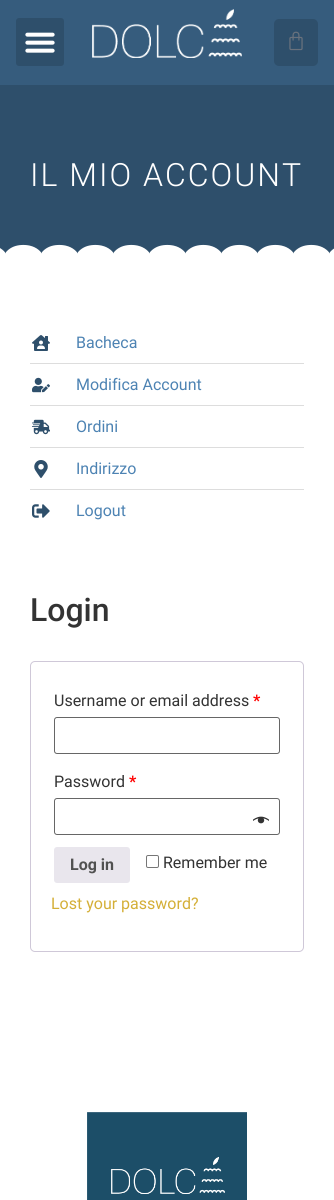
#include <cairo.h>
#include <math.h>
#include <stddef.h>


static void set_color(cairo_t *cr, unsigned color) {
    cairo_set_source_rgb(cr, (color >> 16) / 255.0, (color >> 8 & 255) / 255.0, (color & 255) / 255.0);
}

static void draw_text(cairo_t *cr, double x, double y, const char *s, const char *family, double size, int italic, int bold, unsigned color) {
    cairo_select_font_face(cr, family, italic ? CAIRO_FONT_SLANT_ITALIC : CAIRO_FONT_SLANT_NORMAL,
        bold ? CAIRO_FONT_WEIGHT_BOLD : CAIRO_FONT_WEIGHT_NORMAL);
    cairo_set_font_size(cr, size);
    set_color(cr, color);
    cairo_move_to(cr, x, y);
    cairo_show_text(cr, s);
}

static void draw_spaced(cairo_t *cr, double x, double y, const char *s, double letter, double word) {
    cairo_move_to(cr, x, y);
    while (*s) {
        char ch[5] = {0};
        int n = 0;
        do ch[n++] = *s++; while ((*s & 0xC0) == 0x80);
        cairo_show_text(cr, ch);
        cairo_rel_move_to(cr, letter + word * (*ch == ' '), 0);
    }
}

static void fill_rect(cairo_t *cr, double x, double y, double w, double h, unsigned color) {
    set_color(cr, color);
    cairo_rectangle(cr, x, y, w, h);
    cairo_fill(cr);
}

static void rounded_rect(cairo_t *cr, double x, double y, double w, double h, double r) {
    cairo_new_sub_path(cr);
    cairo_arc(cr, x + w - r, y + h - r, r, 0, M_PI / 2);
    cairo_arc(cr, x + r, y + h - r, r, M_PI / 2, M_PI);
    cairo_arc(cr, x + r, y + r, r, M_PI, 1.5 * M_PI);
    cairo_arc(cr, x + w - r, y + r, r, 1.5 * M_PI, 2 * M_PI);
    cairo_close_path(cr);
}

static void draw_image(cairo_t *cr, const char *path, double x, double y, double w, double h) {
    cairo_surface_t *image = cairo_image_surface_create_from_png(path);
    cairo_save(cr);
    cairo_set_source_surface(cr, image, x, y);
    cairo_rectangle(cr, x, y, w, h);
    cairo_fill(cr);
    cairo_restore(cr);
    cairo_surface_destroy(image);
}

int main(void) {
    cairo_surface_t *surface = cairo_image_surface_create(CAIRO_FORMAT_RGB24, 334, 1200);
    cairo_t *cr = cairo_create(surface);
    cairo_font_options_t *options = cairo_font_options_create();
    cairo_font_options_set_hint_metrics(options, CAIRO_HINT_METRICS_OFF);
    cairo_font_options_set_hint_style(options, CAIRO_HINT_STYLE_NONE);
    cairo_set_font_options(cr, options);
    cairo_set_miter_limit(cr, 4);
    set_color(cr, 0xFFFFFF);
    cairo_paint(cr);
    fill_rect(cr, 0, 0, 334, 85, 0x365C7D);
    draw_image(cr, "assets/img1.png", 92, 9, 150, 49);
    set_color(cr, 0x2E4F6B);
    rounded_rect(cr, 16, 18, 48, 48, 3);
    cairo_fill(cr);
    draw_image(cr, "assets/img2.png", 25, 32, 30, 21);
    rounded_rect(cr, 274, 19, 44, 47, 5);
    cairo_fill(cr);
    draw_image(cr, "assets/img3.png", 289, 31, 14, 20);
    fill_rect(cr, 0, 85, 334, 169, 0x2E4F6B);
    cairo_select_font_face(cr, "Roboto Light", CAIRO_FONT_SLANT_NORMAL, CAIRO_FONT_WEIGHT_NORMAL);
    cairo_set_font_size(cr, 32);
    set_color(cr, 0xFFFFFF);
    draw_spaced(cr, 30, 186, "IL MIO ACCOUNT", 2, 0);
    draw_image(cr, "assets/img4.png", 0, 244, 334, 21);
    draw_image(cr, "assets/img5.png", 32, 335, 18, 16);
    draw_text(cr, 76, 348, "Bacheca", "Roboto", 16, 0, 0, 0x4D83B3);
    fill_rect(cr, 30, 363, 274, 1, 0xDDDDDD);
    draw_image(cr, "assets/img6.png", 32, 377, 18, 16);
    draw_text(cr, 76, 390, "Modifica Account", "Roboto", 16, 0, 0, 0x4D83B3);
    fill_rect(cr, 30, 405, 274, 1, 0xDDDDDD);
    draw_image(cr, "assets/img7.png", 32, 419, 18, 16);
    draw_text(cr, 76, 432, "Ordini", "Roboto", 16, 0, 0, 0x4D83B3);
    fill_rect(cr, 30, 447, 274, 1, 0xDDDDDD);
    draw_image(cr, "assets/img8.png", 34, 460, 14, 18);
    draw_text(cr, 76, 474, "Indirizzo", "Roboto", 16, 0, 0, 0x4D83B3);
    fill_rect(cr, 30, 489, 274, 1, 0xDDDDDD);
    draw_image(cr, "assets/img9.png", 32, 504, 18, 14);
    draw_text(cr, 76, 516, "Logout", "Roboto", 16, 0, 0, 0x4D83B3);
    draw_text(cr, 30, 621, "Login", "Roboto Medium", 32, 0, 0, 0x333333);
    rounded_rect(cr, 30.5, 661.5, 273, 290, 4.5);
    set_color(cr, 0xCFC8D8);
    cairo_set_line_width(cr, 1);
    cairo_stroke(cr);
    draw_text(cr, 54, 706, "Username or email address", "Roboto", 16, 0, 0, 0x333333);
    draw_text(cr, 253, 706, "*", "Roboto", 16, 0, 1, 0xFF0000);
    rounded_rect(cr, 54.5, 717.5, 225, 36, 2.5);
    set_color(cr, 0x666666);
    cairo_stroke(cr);
    draw_text(cr, 54, 787, "Password", "Roboto", 16, 0, 0, 0x333333);
    draw_text(cr, 129, 787, "*", "Roboto", 16, 0, 1, 0xFF0000);
    rounded_rect(cr, 54.5, 798.5, 225, 36, 2.5);
    set_color(cr, 0x666666);
    cairo_stroke(cr);
    draw_image(cr, "assets/img10.png", 253, 816, 16, 8);
    set_color(cr, 0xE9E6ED);
    rounded_rect(cr, 54, 847, 76, 36, 3);
    cairo_fill(cr);
    draw_text(cr, 70, 870, "Log in", "Roboto", 16, 0, 1, 0x515151);
    rounded_rect(cr, 146.5, 855.5, 12, 12, 1.5);
    set_color(cr, 0x767676);
    cairo_stroke(cr);
    draw_text(cr, 163, 868, "Remember me", "Roboto", 16, 0, 0, 0x333333);
    draw_text(cr, 51, 909, "Lost your password?", "Roboto", 16, 0, 0, 0xD4AF37);
    draw_image(cr, "assets/img11.png", 87, 1112, 160, 88);
    cairo_surface_write_to_png(surface, "output.png");
    cairo_font_options_destroy(options);
    cairo_destroy(cr);
    cairo_surface_destroy(surface);
    return 0;
}
